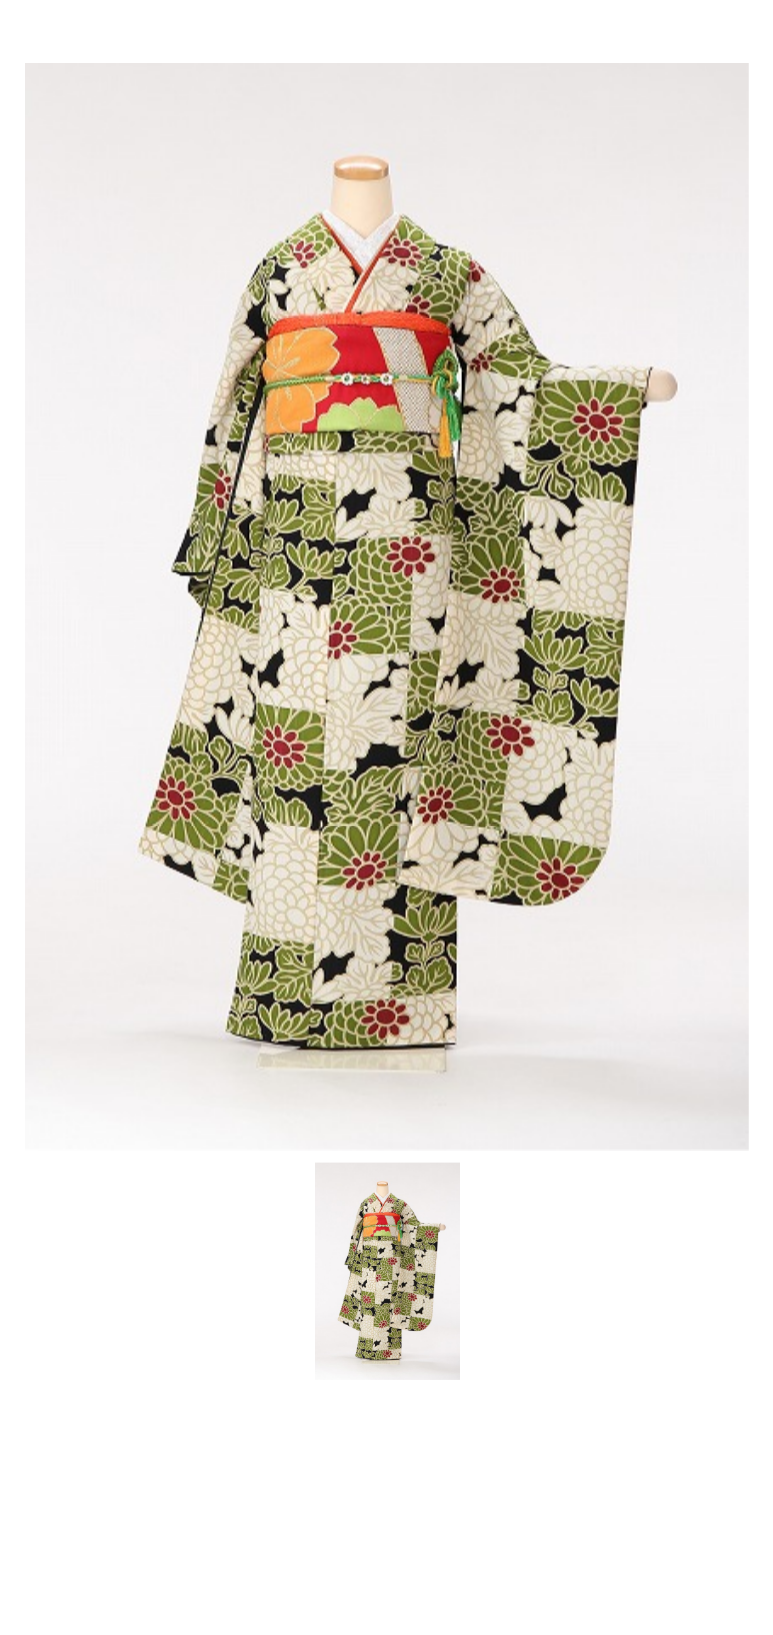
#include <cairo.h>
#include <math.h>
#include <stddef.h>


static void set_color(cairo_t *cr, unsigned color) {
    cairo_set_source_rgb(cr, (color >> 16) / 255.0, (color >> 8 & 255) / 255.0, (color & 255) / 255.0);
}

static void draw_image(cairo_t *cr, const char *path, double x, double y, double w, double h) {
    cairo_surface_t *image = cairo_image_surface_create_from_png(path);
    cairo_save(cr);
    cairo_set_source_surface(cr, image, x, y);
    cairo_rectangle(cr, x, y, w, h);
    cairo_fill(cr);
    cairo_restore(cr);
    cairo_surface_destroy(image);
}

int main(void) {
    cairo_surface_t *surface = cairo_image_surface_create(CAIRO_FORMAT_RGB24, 773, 1635);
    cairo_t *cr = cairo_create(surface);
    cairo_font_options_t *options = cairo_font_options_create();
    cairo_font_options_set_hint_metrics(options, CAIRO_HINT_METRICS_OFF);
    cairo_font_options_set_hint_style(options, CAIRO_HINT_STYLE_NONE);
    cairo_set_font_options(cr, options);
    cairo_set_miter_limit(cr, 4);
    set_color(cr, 0xFFFFFF);
    cairo_paint(cr);
    draw_image(cr, "assets/img1.png", 25, 63, 724, 1088);
    draw_image(cr, "assets/img2.png", 315, 1162, 145, 218);
    cairo_surface_write_to_png(surface, "output.png");
    cairo_font_options_destroy(options);
    cairo_destroy(cr);
    cairo_surface_destroy(surface);
    return 0;
}
